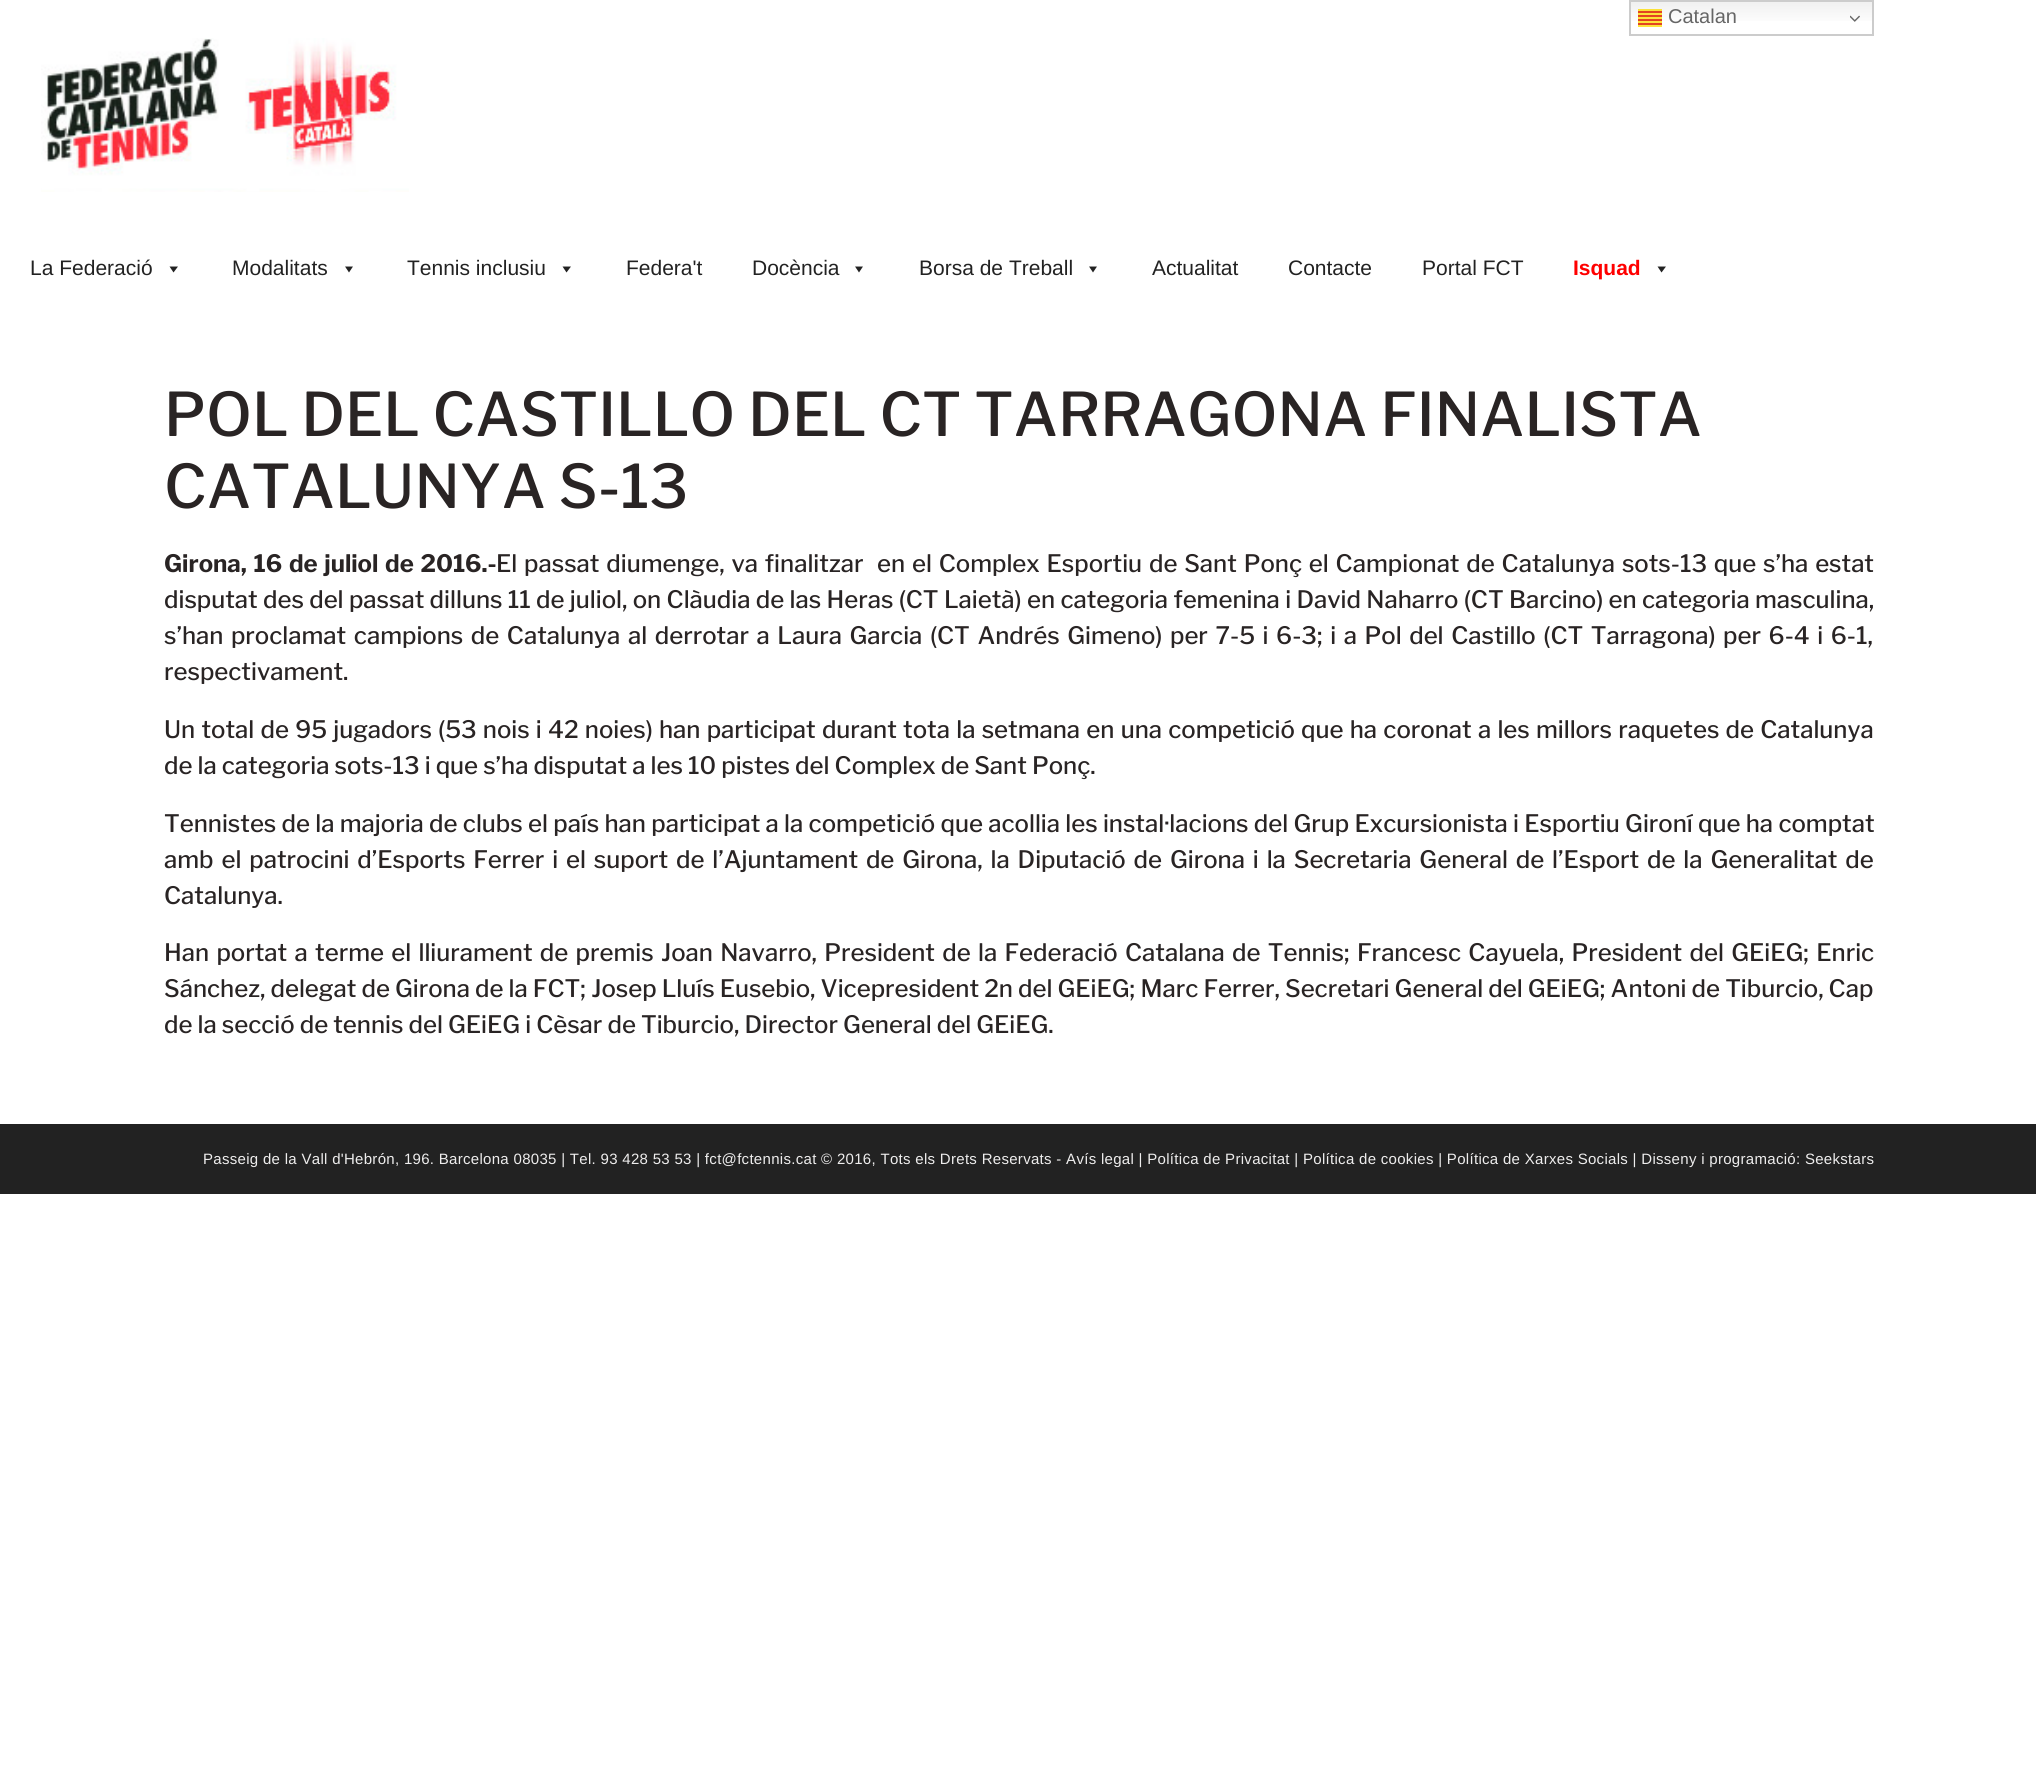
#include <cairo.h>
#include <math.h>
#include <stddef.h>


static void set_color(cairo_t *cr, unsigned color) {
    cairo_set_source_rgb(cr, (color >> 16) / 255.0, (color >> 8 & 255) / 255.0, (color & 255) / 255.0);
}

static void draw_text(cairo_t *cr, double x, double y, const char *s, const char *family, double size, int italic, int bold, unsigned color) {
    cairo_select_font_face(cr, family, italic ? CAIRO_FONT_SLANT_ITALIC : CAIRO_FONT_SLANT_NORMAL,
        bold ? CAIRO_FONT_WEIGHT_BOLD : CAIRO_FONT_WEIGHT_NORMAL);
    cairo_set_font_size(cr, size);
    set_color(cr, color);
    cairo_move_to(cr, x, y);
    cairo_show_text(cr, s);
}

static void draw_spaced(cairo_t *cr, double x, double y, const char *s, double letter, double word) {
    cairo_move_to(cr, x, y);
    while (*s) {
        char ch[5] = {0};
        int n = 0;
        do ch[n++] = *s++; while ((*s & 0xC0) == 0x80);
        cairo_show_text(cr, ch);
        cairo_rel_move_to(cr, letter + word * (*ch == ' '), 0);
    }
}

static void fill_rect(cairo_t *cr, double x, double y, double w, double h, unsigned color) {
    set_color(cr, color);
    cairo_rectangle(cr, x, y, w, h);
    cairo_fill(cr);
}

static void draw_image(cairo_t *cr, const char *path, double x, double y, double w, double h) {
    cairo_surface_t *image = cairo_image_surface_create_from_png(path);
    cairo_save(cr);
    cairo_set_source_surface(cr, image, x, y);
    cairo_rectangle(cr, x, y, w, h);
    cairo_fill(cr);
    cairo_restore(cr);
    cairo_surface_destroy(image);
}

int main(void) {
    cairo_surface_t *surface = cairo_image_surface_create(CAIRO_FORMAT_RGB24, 2036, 1779);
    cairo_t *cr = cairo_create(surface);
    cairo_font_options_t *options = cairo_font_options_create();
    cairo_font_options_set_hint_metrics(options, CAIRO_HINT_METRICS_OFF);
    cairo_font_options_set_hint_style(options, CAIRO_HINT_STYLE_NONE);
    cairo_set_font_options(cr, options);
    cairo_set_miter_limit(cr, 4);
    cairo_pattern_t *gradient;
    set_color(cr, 0xFFFFFF);
    cairo_paint(cr);
    gradient = cairo_pattern_create_linear(1751, 0, 1751, 36);
    cairo_pattern_add_color_stop_rgba(gradient, 0, 0.937, 0.937, 0.937, 1);
    cairo_pattern_add_color_stop_rgba(gradient, 0.7, 1, 1, 1, 1);
    cairo_set_source(cr, gradient);
    cairo_pattern_destroy(gradient);
    cairo_rectangle(cr, 1631, 2, 241, 19);
    cairo_fill(cr);
    cairo_rectangle(cr, 1630, 1, 243, 34);
    set_color(cr, 0xCCCCCC);
    cairo_stroke(cr);
    draw_image(cr, "assets/img1.png", 1638, 9, 24, 18);
    draw_text(cr, 1668, 23, "Catalan", "Liberation Sans", 20, 0, 0, 0x666666);
    draw_image(cr, "assets/img2.png", 1850, 15, 10, 7);
    draw_image(cr, "assets/img3.png", 41, 38, 368, 154);
    draw_text(cr, 30, 275, "La Federació", "Liberation Sans", 21, 0, 0, 0x222222);
    cairo_new_path(cr);
    cairo_move_to(cr, 178, 266.5);
    cairo_line_to(cr, 173.5, 272.5);
    cairo_line_to(cr, 169.5, 266.5);
    cairo_close_path(cr);
    cairo_fill(cr);
    draw_text(cr, 232, 275, "Modalitats", "Liberation Sans", 21, 0, 0, 0x222222);
    cairo_new_path(cr);
    cairo_move_to(cr, 353, 266.5);
    cairo_line_to(cr, 349, 272.5);
    cairo_line_to(cr, 345, 266.5);
    cairo_close_path(cr);
    cairo_fill(cr);
    draw_text(cr, 407, 275, "Tennis inclusiu", "Liberation Sans", 21, 0, 0, 0x222222);
    cairo_new_path(cr);
    cairo_move_to(cr, 571, 266.5);
    cairo_line_to(cr, 566.5, 272.5);
    cairo_line_to(cr, 562.5, 266.5);
    cairo_close_path(cr);
    cairo_fill(cr);
    draw_text(cr, 626, 275, "Federa't", "Liberation Sans", 21, 0, 0, 0x222222);
    draw_text(cr, 752, 275, "Docència", "Liberation Sans", 21, 0, 0, 0x222222);
    cairo_new_path(cr);
    cairo_move_to(cr, 863, 266.5);
    cairo_line_to(cr, 859, 272.5);
    cairo_line_to(cr, 855, 266.5);
    cairo_close_path(cr);
    cairo_fill(cr);
    draw_text(cr, 919, 275, "Borsa de Treball", "Liberation Sans", 21, 0, 0, 0x222222);
    cairo_new_path(cr);
    cairo_move_to(cr, 1097, 266.5);
    cairo_line_to(cr, 1093, 272.5);
    cairo_line_to(cr, 1089, 266.5);
    cairo_close_path(cr);
    cairo_fill(cr);
    draw_text(cr, 1152, 275, "Actualitat", "Liberation Sans", 21, 0, 0, 0x222222);
    draw_text(cr, 1288, 275, "Contacte", "Liberation Sans", 21, 0, 0, 0x222222);
    draw_text(cr, 1422, 275, "Portal FCT", "Liberation Sans", 21, 0, 0, 0x222222);
    draw_text(cr, 1573, 275, "Isquad", "Liberation Sans", 21, 0, 1, 0xFF0000);
    set_color(cr, 0x222222);
    cairo_new_path(cr);
    cairo_move_to(cr, 1666, 266.5);
    cairo_line_to(cr, 1661.5, 272.5);
    cairo_line_to(cr, 1657.5, 266.5);
    cairo_close_path(cr);
    cairo_fill(cr);
    draw_text(cr, 164, 436, "POL DEL CASTILLO DEL CT TARRAGONA FINALISTA", "Libre Franklin Medium", 60, 0, 0, 0x292424);
    draw_text(cr, 164, 508, "CATALUNYA S-13", "Libre Franklin Medium", 60, 0, 0, 0x292424);
    cairo_select_font_face(cr, "Libre Franklin", CAIRO_FONT_SLANT_NORMAL, CAIRO_FONT_WEIGHT_BOLD);
    cairo_set_font_size(cr, 24);
    draw_spaced(cr, 164, 572, "Girona, 16 de juliol de 2016.-", 0, 1.75);
    cairo_select_font_face(cr, "Libre Franklin Medium", CAIRO_FONT_SLANT_NORMAL, CAIRO_FONT_WEIGHT_NORMAL);
    draw_spaced(cr, 496, 572, "El passat diumenge, va finalitzar", 0, 1.75);
    draw_spaced(cr, 877, 572, "en el Complex Esportiu de Sant Ponç el Campionat de Catalunya sots-13 que s’ha estat", 0, 1.75);
    draw_spaced(cr, 164, 608, "disputat des del passat dilluns 11 de juliol, on Clàudia de las Heras (CT Laietà) en categoria femenina i David Naharro (CT Barcino) en categoria masculina,", 0, 0.25);
    draw_spaced(cr, 164, 644, "s’han proclamat campions de Catalunya al derrotar a Laura Garcia (CT Andrés Gimeno) per 7-5 i 6-3; i a Pol del Castillo (CT Tarragona) per 6-4 i 6-1,", 0, 2.5);
    draw_text(cr, 164, 680, "respectivament.", "Libre Franklin Medium", 24, 0, 0, 0x292424);
    draw_spaced(cr, 164, 738, "Un total de 95 jugadors (53 nois i 42 noies) han participat durant tota la setmana en una competició que ha coronat a les millors raquetes de Catalunya", 0, 1.15);
    draw_text(cr, 164, 774, "de la categoria sots-13 i que s’ha disputat a les 10 pistes del Complex de Sant Ponç.", "Libre Franklin Medium", 24, 0, 0, 0x292424);
    draw_spaced(cr, 164, 832, "Tennistes de la majoria de clubs el país han participat a la competició que acollia les instal·lacions del Grup Excursionista i Esportiu Gironí que ha comptat", 0, 0.2);
    draw_spaced(cr, 164, 868, "amb el patrocini d’Esports Ferrer i el suport de l’Ajuntament de Girona, la Diputació de Girona i la Secretaria General de l’Esport de la Generalitat de", 0, 2.8);
    draw_text(cr, 164, 904, "Catalunya.", "Libre Franklin Medium", 24, 0, 0, 0x292424);
    draw_spaced(cr, 164, 961, "Han portat a terme el lliurament de premis Joan Navarro, President de la Federació Catalana de Tennis; Francesc Cayuela, President del GEiEG; Enric", 0, 2.2);
    draw_text(cr, 164, 997, "Sánchez, delegat de Girona de la FCT; Josep Lluís Eusebio, Vicepresident 2n del GEiEG; Marc Ferrer, Secretari General del GEiEG; Antoni de Tiburcio, Cap", "Libre Franklin Medium", 24, 0, 0, 0x292424);
    draw_text(cr, 164, 1033, "de la secció de tennis del GEiEG i Cèsar de Tiburcio, Director General del GEiEG.", "Libre Franklin Medium", 24, 0, 0, 0x292424);
    fill_rect(cr, 0, 1124, 2036, 70, 0x222222);
    cairo_select_font_face(cr, "Liberation Sans", CAIRO_FONT_SLANT_NORMAL, CAIRO_FONT_WEIGHT_NORMAL);
    cairo_set_font_size(cr, 15);
    set_color(cr, 0xEEEDED);
    draw_spaced(cr, 203, 1164, "Passeig de la Vall d'Hebrón, 196. Barcelona 08035 | Tel. 93 428 53 53 | fct@fctennis.cat © 2016, Tots els Drets Reservats - Avís legal | Política de Privacitat | Política de cookies | Política de Xarxes Socials | Disseny i programació: Seekstars", 0.3, 0);
    cairo_surface_write_to_png(surface, "output.png");
    cairo_font_options_destroy(options);
    cairo_destroy(cr);
    cairo_surface_destroy(surface);
    return 0;
}
